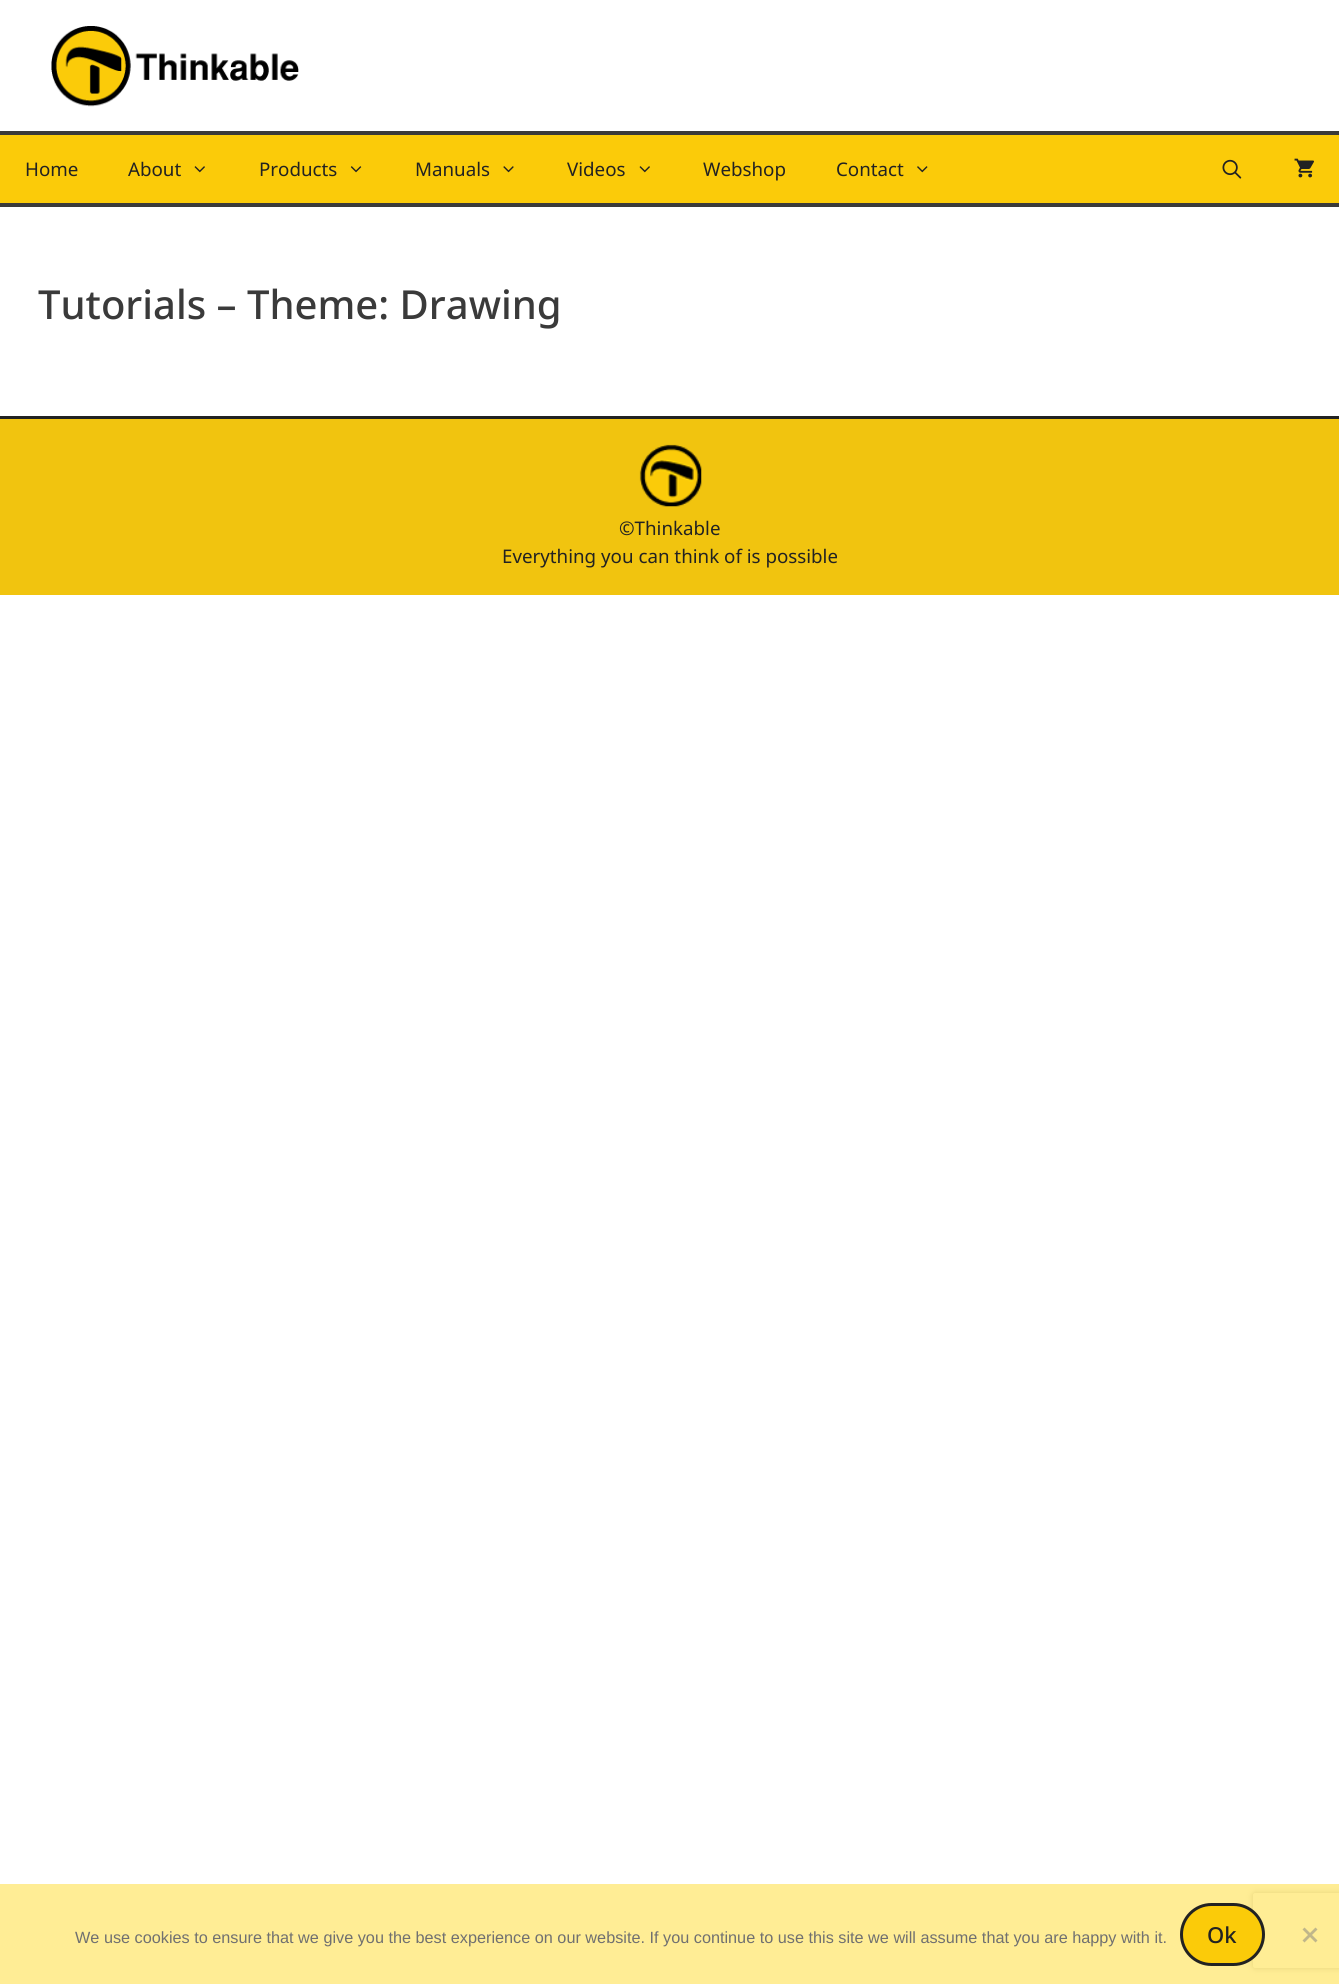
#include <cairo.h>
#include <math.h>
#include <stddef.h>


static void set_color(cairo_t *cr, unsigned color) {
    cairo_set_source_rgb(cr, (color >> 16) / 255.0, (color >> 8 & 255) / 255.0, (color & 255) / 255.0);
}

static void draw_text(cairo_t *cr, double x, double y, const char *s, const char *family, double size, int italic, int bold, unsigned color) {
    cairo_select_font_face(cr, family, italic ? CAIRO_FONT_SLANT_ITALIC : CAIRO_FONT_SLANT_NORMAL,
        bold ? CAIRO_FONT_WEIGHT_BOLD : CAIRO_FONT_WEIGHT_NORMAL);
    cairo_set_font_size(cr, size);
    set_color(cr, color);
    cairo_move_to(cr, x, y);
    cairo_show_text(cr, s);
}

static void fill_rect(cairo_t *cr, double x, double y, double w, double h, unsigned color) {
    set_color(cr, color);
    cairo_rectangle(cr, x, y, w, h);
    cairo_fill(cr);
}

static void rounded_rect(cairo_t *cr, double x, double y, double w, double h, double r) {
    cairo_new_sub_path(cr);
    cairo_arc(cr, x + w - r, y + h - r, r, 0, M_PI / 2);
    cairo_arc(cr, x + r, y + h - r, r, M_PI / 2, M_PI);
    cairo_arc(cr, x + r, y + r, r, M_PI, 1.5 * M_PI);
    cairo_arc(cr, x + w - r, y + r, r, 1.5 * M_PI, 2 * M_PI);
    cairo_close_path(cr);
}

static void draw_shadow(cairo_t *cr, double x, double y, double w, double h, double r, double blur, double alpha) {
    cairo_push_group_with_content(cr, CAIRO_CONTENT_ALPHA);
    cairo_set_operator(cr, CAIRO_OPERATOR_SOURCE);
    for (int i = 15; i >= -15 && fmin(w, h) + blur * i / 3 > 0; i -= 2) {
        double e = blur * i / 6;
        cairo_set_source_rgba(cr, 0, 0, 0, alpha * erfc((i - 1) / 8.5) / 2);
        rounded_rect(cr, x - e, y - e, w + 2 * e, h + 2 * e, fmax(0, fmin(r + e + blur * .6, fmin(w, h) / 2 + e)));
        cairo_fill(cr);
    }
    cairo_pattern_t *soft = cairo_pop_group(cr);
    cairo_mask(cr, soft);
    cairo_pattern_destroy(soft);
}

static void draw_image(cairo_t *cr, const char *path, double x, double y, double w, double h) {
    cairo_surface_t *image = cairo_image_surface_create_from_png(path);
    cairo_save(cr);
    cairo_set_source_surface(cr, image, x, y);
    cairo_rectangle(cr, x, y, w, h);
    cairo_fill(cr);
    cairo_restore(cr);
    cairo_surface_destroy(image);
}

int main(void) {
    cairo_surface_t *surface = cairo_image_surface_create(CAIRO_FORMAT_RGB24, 1339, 1984);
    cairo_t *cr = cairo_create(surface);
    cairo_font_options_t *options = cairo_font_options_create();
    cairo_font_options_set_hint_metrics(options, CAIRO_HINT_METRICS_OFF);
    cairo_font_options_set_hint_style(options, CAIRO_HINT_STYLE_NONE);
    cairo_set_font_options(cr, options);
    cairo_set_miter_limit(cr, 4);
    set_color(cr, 0xFFFFFF);
    cairo_paint(cr);
    fill_rect(cr, 0, 1884, 1339, 100, 0xFFED95);
    draw_image(cr, "assets/img1.png", 51, 26, 248, 81);
    fill_rect(cr, 0, 135, 1339, 68, 0xFBCB09);
    fill_rect(cr, 0, 131, 1339, 4, 0x3A3A3A);
    fill_rect(cr, 0, 203, 1339, 4, 0x3A3A3A);
    draw_text(cr, 25, 176, "Home", "Noto Sans", 18.75, 0, 0, 0x222222);
    draw_text(cr, 128, 176, "About", "Noto Sans", 18.75, 0, 0, 0x222222);
    draw_image(cr, "assets/img2.png", 194, 166, 11, 7);
    draw_text(cr, 259, 176, "Products", "Noto Sans", 18.75, 0, 0, 0x222222);
    draw_image(cr, "assets/img3.png", 350, 166, 12, 7);
    draw_text(cr, 415, 176, "Manuals", "Noto Sans", 18.75, 0, 0, 0x222222);
    draw_image(cr, "assets/img4.png", 503, 166, 11, 7);
    draw_text(cr, 567, 176, "Videos", "Noto Sans", 18.75, 0, 0, 0x222222);
    draw_image(cr, "assets/img2.png", 639, 166, 11, 7);
    draw_text(cr, 703, 176, "Webshop", "Noto Sans", 18.75, 0, 0, 0x222222);
    draw_text(cr, 836, 176, "Contact", "Noto Sans", 18.75, 0, 0, 0x222222);
    draw_image(cr, "assets/img5.png", 917, 166, 11, 7);
    draw_image(cr, "assets/img6.png", 1222, 159, 20, 20);
    draw_image(cr, "assets/img7.png", 1294, 158, 20, 20);
    draw_text(cr, 38, 319, "Tutorials – Theme: Drawing", "Noto Sans Medium", 40, 0, 0, 0x3A3A3A);
    fill_rect(cr, 0, 419, 1339, 176, 0xF1C40F);
    fill_rect(cr, 0, 416, 1339, 3, 0x222222);
    draw_image(cr, "assets/img8.png", 639, 444, 63, 63);
    draw_text(cr, 619, 535, "©Thinkable", "Noto Sans", 18.75, 0, 0, 0x222222);
    draw_text(cr, 502, 563, "Everything you can think of is possible", "Noto Sans", 18.75, 0, 0, 0x222222);
    draw_text(cr, 75, 1943, "We use cookies to ensure that we give you the best experience on our website. If you continue to use this site we will assume that you are happy with it.", "Liberation Sans", 16.25, 0, 0, 0x707070);
    cairo_save(cr);
    cairo_set_fill_rule(cr, CAIRO_FILL_RULE_EVEN_ODD);
    cairo_new_path(cr);
    cairo_move_to(cr, 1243, 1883);
    cairo_line_to(cr, 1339, 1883);
    cairo_line_to(cr, 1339, 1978);
    cairo_line_to(cr, 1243, 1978);
    cairo_close_path(cr);
    cairo_move_to(cr, 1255.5, 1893);
    cairo_line_to(cr, 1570.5, 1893);
    cairo_curve_to(cr, 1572, 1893, 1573, 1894, 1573, 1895.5);
    cairo_line_to(cr, 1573, 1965.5);
    cairo_curve_to(cr, 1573, 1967, 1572, 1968, 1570.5, 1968);
    cairo_line_to(cr, 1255.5, 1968);
    cairo_curve_to(cr, 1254, 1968, 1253, 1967, 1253, 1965.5);
    cairo_line_to(cr, 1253, 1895.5);
    cairo_curve_to(cr, 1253, 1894, 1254, 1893, 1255.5, 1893);
    cairo_close_path(cr);
    cairo_clip(cr);
    set_color(cr, 0xE6D37B);
    draw_shadow(cr, 1253, 1893, 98, 75, 2.5, 3, 1);
    cairo_restore(cr);
    set_color(cr, 0xFBCB09);
    rounded_rect(cr, 1181.5, 1904.5, 82, 60, 30);
    cairo_fill_preserve(cr);
    set_color(cr, 0x222222);
    cairo_set_line_width(cr, 3);
    cairo_stroke(cr);
    draw_text(cr, 1207, 1943, "Ok", "Noto Sans Medium", 22, 0, 0, 0x222222);
    set_color(cr, 0xC0B68A);
    cairo_new_path(cr);
    cairo_move_to(cr, 1315.5, 1927.5);
    cairo_line_to(cr, 1317.5, 1929.5);
    cairo_line_to(cr, 1304.5, 1942.5);
    cairo_line_to(cr, 1302.5, 1940.5);
    cairo_close_path(cr);
    cairo_fill(cr);
    cairo_new_path(cr);
    cairo_move_to(cr, 1302.5, 1929.5);
    cairo_line_to(cr, 1304.5, 1927.5);
    cairo_line_to(cr, 1317.5, 1940.5);
    cairo_line_to(cr, 1315.5, 1942.5);
    cairo_close_path(cr);
    cairo_fill(cr);
    cairo_surface_write_to_png(surface, "output.png");
    cairo_font_options_destroy(options);
    cairo_destroy(cr);
    cairo_surface_destroy(surface);
    return 0;
}
